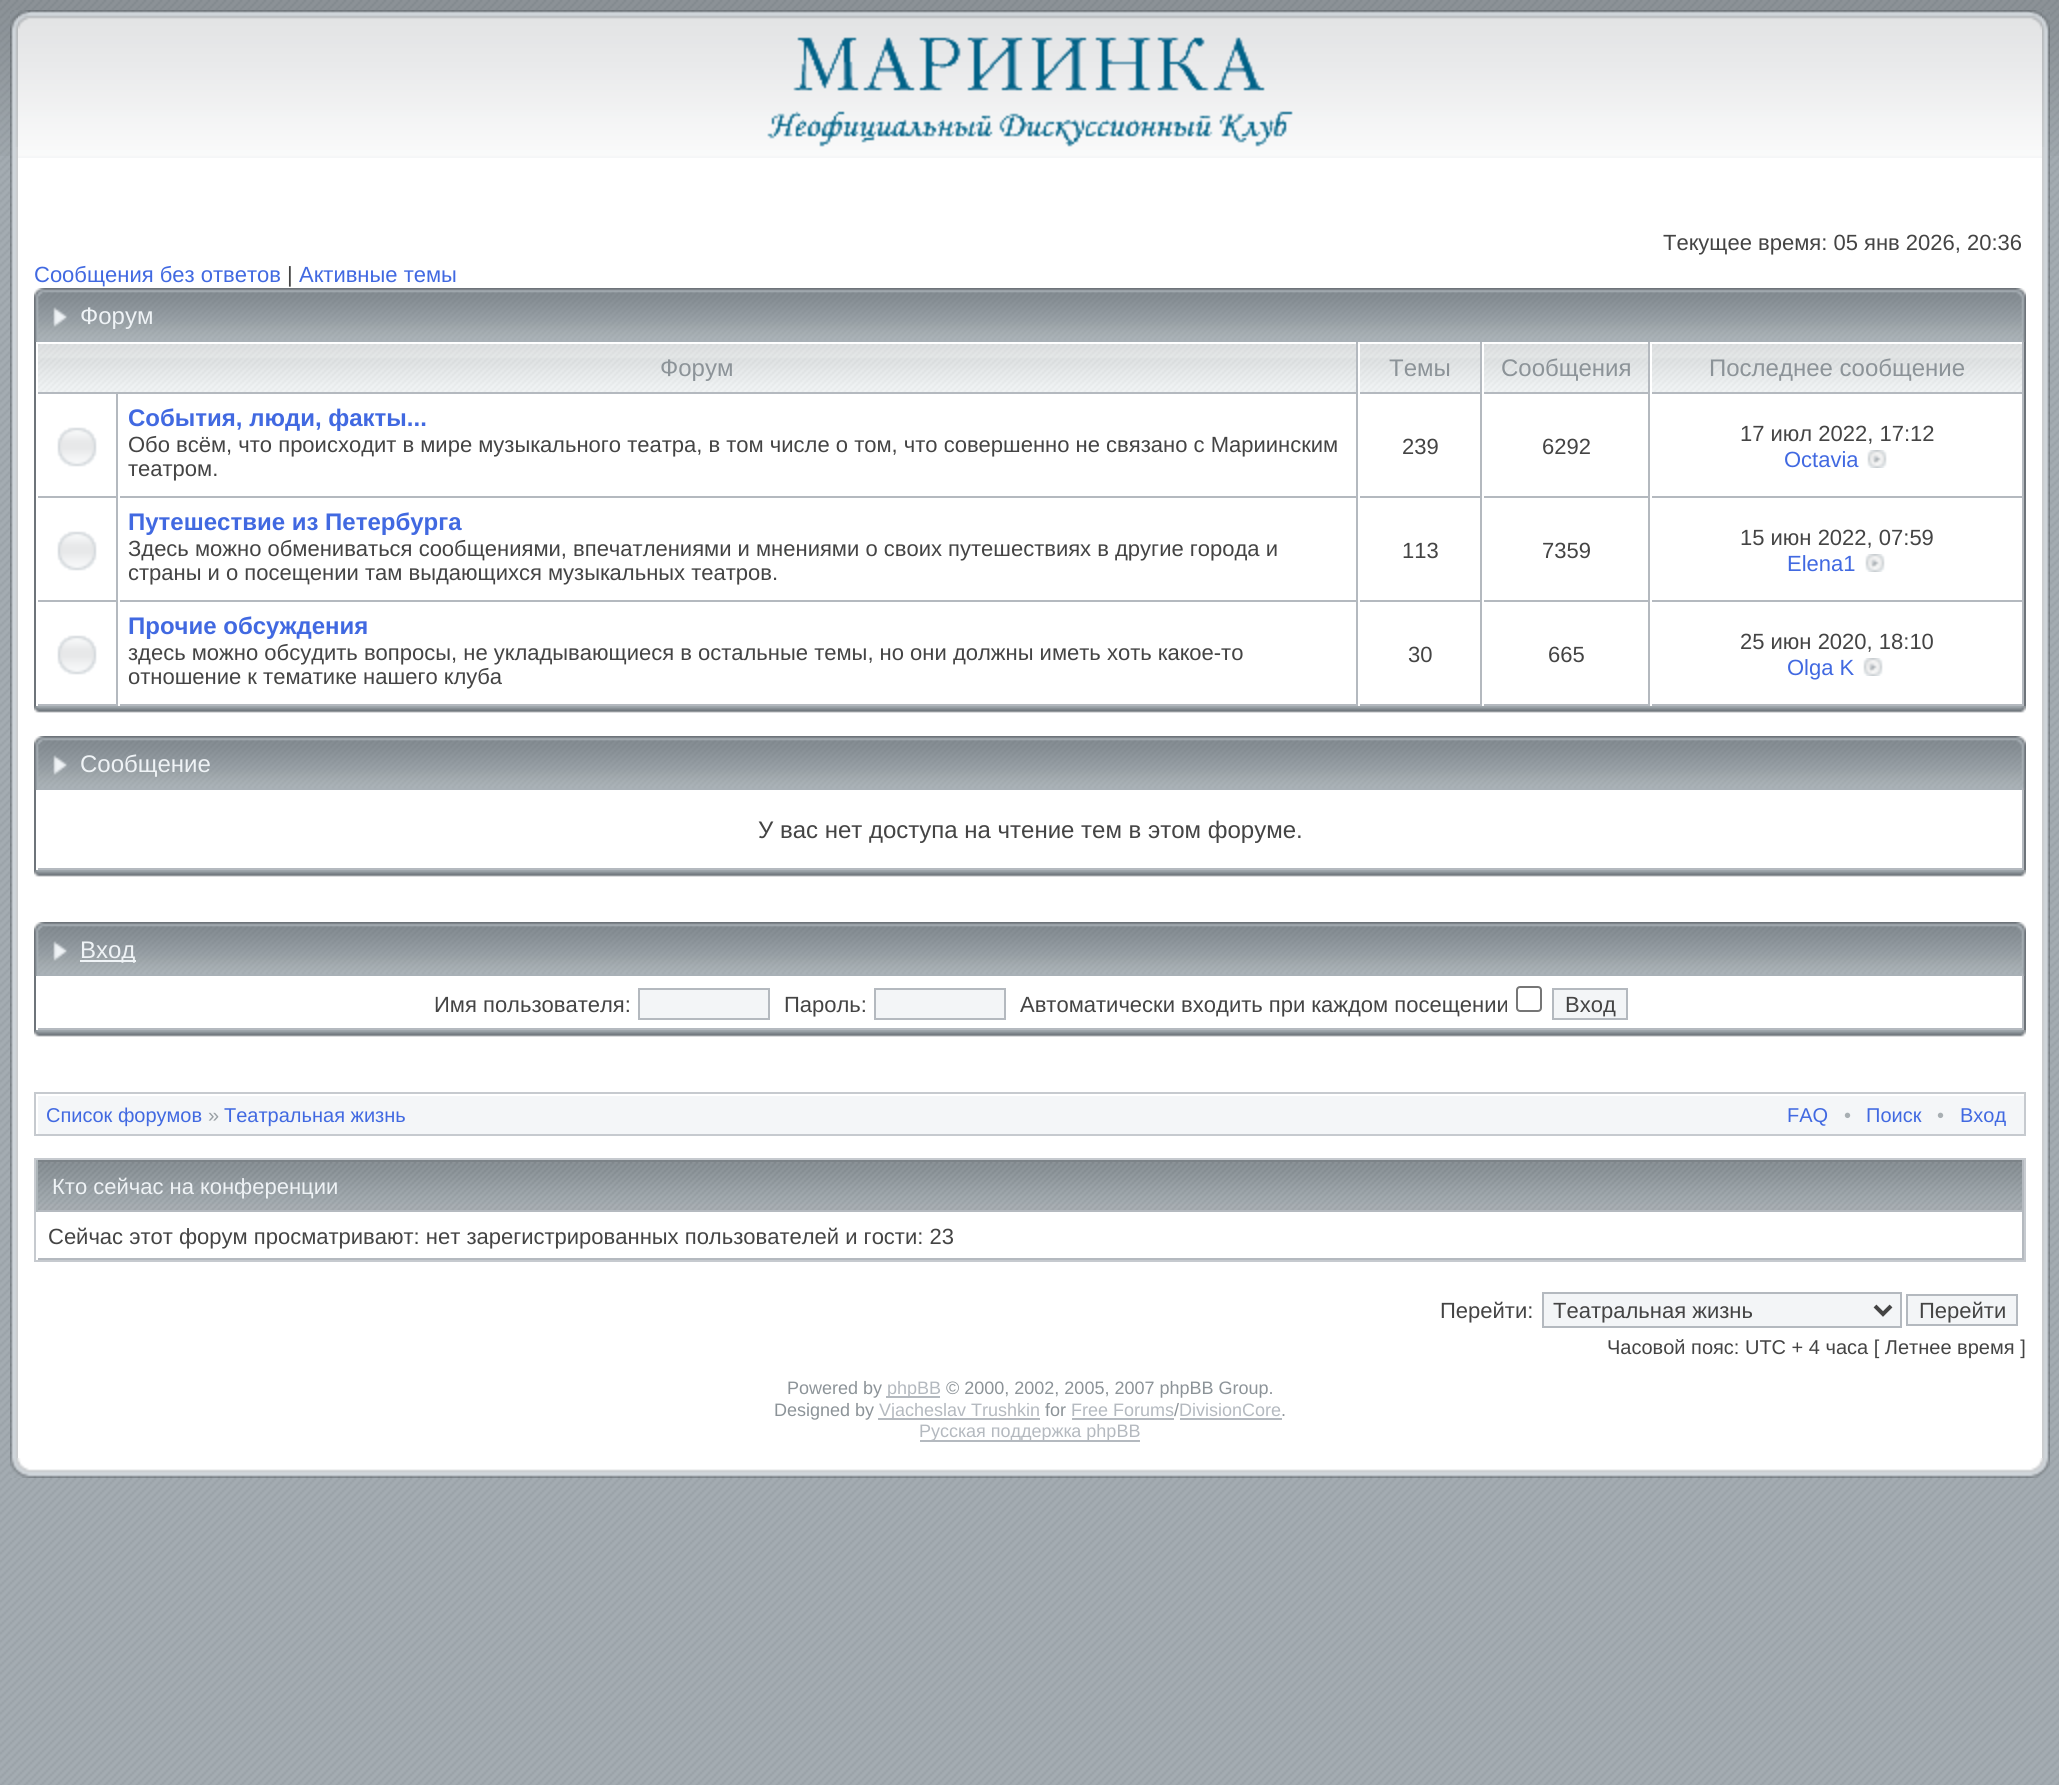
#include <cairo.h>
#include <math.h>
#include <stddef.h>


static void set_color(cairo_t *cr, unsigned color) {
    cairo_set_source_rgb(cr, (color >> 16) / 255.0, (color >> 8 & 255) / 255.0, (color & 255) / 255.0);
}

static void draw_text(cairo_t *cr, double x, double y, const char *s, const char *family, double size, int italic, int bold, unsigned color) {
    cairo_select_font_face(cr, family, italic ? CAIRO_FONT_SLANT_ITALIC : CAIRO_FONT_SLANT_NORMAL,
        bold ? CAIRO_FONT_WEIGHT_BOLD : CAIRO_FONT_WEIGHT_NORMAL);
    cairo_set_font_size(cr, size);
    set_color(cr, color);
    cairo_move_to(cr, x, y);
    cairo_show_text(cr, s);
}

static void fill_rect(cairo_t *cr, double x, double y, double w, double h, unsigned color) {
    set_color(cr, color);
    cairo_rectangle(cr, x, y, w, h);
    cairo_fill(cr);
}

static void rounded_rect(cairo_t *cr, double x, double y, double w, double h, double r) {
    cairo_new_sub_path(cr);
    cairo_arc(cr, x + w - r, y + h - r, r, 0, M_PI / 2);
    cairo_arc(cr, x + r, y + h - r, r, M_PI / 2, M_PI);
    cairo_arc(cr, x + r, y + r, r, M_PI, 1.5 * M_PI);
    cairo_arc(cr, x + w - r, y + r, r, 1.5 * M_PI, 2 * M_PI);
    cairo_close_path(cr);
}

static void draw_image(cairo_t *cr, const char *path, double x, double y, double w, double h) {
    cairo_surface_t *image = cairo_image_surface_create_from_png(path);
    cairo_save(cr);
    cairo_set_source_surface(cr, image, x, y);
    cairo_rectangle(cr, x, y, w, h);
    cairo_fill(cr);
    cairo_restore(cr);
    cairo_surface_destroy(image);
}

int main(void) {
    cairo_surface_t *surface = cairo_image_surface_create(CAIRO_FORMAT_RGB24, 2059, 1785);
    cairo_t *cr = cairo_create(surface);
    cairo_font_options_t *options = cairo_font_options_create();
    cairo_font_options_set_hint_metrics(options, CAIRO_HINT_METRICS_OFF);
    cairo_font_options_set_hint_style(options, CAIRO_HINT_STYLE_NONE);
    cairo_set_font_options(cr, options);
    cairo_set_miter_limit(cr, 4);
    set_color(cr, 0xFFFFFF);
    cairo_paint(cr);
    draw_image(cr, "assets/img1.png", 0, 156, 2059, 1629);
    draw_image(cr, "assets/img2.png", 0, 0, 2059, 156);
    fill_rect(cr, 18, 158, 2024, 1311, 0xFFFFFF);
    draw_image(cr, "assets/img3.png", 10, 147, 8, 63);
    draw_image(cr, "assets/img4.png", 10, 10, 8, 137);
    draw_image(cr, "assets/img5.png", 18, 10, 2024, 148);
    draw_image(cr, "assets/img6.png", 18, 10, 13, 19);
    draw_image(cr, "assets/img7.png", 2029, 10, 13, 20);
    draw_image(cr, "assets/img8.png", 767, 37, 526, 110);
    draw_image(cr, "assets/img9.png", 2042, 147, 8, 63);
    draw_image(cr, "assets/img10.png", 2042, 10, 8, 137);
    draw_image(cr, "assets/img11.png", 10, 210, 8, 1248);
    draw_text(cr, 1663, 250, "Текущее время: 05 янв 2026, 20:36", "Liberation Sans", 22, 0, 0, 0x444444);
    draw_text(cr, 34, 282, "Сообщения без ответов", "Liberation Sans", 22, 0, 0, 0x4169E1);
    draw_text(cr, 287, 282, "|", "Liberation Sans", 22, 0, 0, 0x444444);
    draw_text(cr, 299, 282, "Активные темы", "Liberation Sans", 22, 0, 0, 0x4169E1);
    draw_image(cr, "assets/img12.png", 39, 706, 1982, 7);
    draw_image(cr, "assets/img13.png", 35, 288, 1990, 54);
    draw_image(cr, "assets/img14.png", 34, 288, 34, 54);
    draw_image(cr, "assets/img15.png", 2016, 288, 10, 54);
    draw_text(cr, 80, 324, "Форум", "Liberation Sans", 24, 0, 0, 0xEFF3F6);
    fill_rect(cr, 2024, 342, 2, 364, 0x6E747A);
    fill_rect(cr, 34, 342, 2, 364, 0x6E747A);
    draw_image(cr, "assets/img16.png", 38, 344, 1318, 48);
    fill_rect(cr, 1356, 342, 2, 364, 0xB4B9BF);
    fill_rect(cr, 36, 392, 1322, 2, 0xB4B9BF);
    fill_rect(cr, 36, 392, 2, 2, 0xFFFFFF);
    draw_text(cr, 660, 376, "Форум", "Liberation Sans", 24, 0, 0, 0x8C9398);
    draw_image(cr, "assets/img17.png", 1360, 344, 120, 48);
    fill_rect(cr, 1480, 342, 2, 364, 0xB4B9BF);
    fill_rect(cr, 1358, 392, 124, 2, 0xB4B9BF);
    fill_rect(cr, 1358, 392, 2, 2, 0xFFFFFF);
    draw_text(cr, 1389, 376, "Темы", "Liberation Sans", 24, 0, 0, 0x8C9398);
    draw_image(cr, "assets/img18.png", 1484, 344, 164, 48);
    fill_rect(cr, 1648, 342, 2, 364, 0xB4B9BF);
    fill_rect(cr, 1482, 392, 168, 2, 0xB4B9BF);
    fill_rect(cr, 1482, 392, 2, 2, 0xFFFFFF);
    draw_text(cr, 1501, 376, "Сообщения", "Liberation Sans", 24, 0, 0, 0x8C9398);
    draw_image(cr, "assets/img19.png", 1652, 344, 370, 48);
    fill_rect(cr, 2022, 342, 2, 364, 0xB4B9BF);
    fill_rect(cr, 1650, 392, 374, 2, 0xB4B9BF);
    fill_rect(cr, 1650, 392, 2, 2, 0xFFFFFF);
    draw_text(cr, 1709, 376, "Последнее сообщение", "Liberation Sans", 24, 0, 0, 0x8C9398);
    fill_rect(cr, 116, 394, 2, 312, 0xB4B9BF);
    fill_rect(cr, 36, 496, 1988, 2, 0xB4B9BF);
    fill_rect(cr, 36, 496, 2, 2, 0xFFFFFF);
    draw_image(cr, "assets/img20.png", 57, 427, 40, 40);
    fill_rect(cr, 118, 496, 2, 2, 0xFFFFFF);
    draw_text(cr, 128, 426, "События, люди, факты...", "Liberation Sans", 24, 0, 1, 0x4169E1);
    draw_text(cr, 128, 452, "Обо всём, что происходит в мире музыкального театра, в том числе о том, что совершенно не связано с Мариинским", "Liberation Sans", 22, 0, 0, 0x444444);
    draw_text(cr, 128, 476, "театром.", "Liberation Sans", 22, 0, 0, 0x444444);
    fill_rect(cr, 1358, 496, 2, 2, 0xFFFFFF);
    draw_text(cr, 1402, 454, "239", "Liberation Sans", 22, 0, 0, 0x444444);
    fill_rect(cr, 1482, 496, 2, 2, 0xFFFFFF);
    draw_text(cr, 1542, 454, "6292", "Liberation Sans", 22, 0, 0, 0x444444);
    fill_rect(cr, 1650, 496, 2, 2, 0xFFFFFF);
    draw_text(cr, 1740, 441, "17 июл 2022, 17:12", "Liberation Sans", 22, 0, 0, 0x444444);
    draw_text(cr, 1784, 467, "Octavia", "Liberation Sans", 22, 0, 0, 0x4169E1);
    draw_image(cr, "assets/img21.png", 1867, 450, 20, 18);
    fill_rect(cr, 36, 600, 1988, 2, 0xB4B9BF);
    fill_rect(cr, 118, 600, 2, 2, 0xFFFFFF);
    draw_text(cr, 128, 530, "Путешествие из Петербурга", "Liberation Sans", 24, 0, 1, 0x4169E1);
    draw_text(cr, 128, 556, "Здесь можно обмениваться сообщениями, впечатлениями и мнениями о своих путешествиях в другие города и", "Liberation Sans", 22, 0, 0, 0x444444);
    draw_text(cr, 128, 580, "страны и о посещении там выдающихся музыкальных театров.", "Liberation Sans", 22, 0, 0, 0x444444);
    fill_rect(cr, 1650, 600, 2, 2, 0xFFFFFF);
    draw_text(cr, 1740, 545, "15 июн 2022, 07:59", "Liberation Sans", 22, 0, 0, 0x444444);
    draw_text(cr, 1787, 571, "Elena1", "Liberation Sans", 22, 0, 0, 0x4169E1);
    draw_image(cr, "assets/img21.png", 1865, 554, 20, 18);
    fill_rect(cr, 36, 600, 2, 2, 0xFFFFFF);
    draw_image(cr, "assets/img20.png", 57, 531, 40, 40);
    fill_rect(cr, 1358, 600, 2, 2, 0xFFFFFF);
    draw_text(cr, 1402, 558, "113", "Liberation Sans", 22, 0, 0, 0x444444);
    fill_rect(cr, 1482, 600, 2, 2, 0xFFFFFF);
    draw_text(cr, 1542, 558, "7359", "Liberation Sans", 22, 0, 0, 0x444444);
    fill_rect(cr, 36, 704, 1988, 2, 0xB4B9BF);
    fill_rect(cr, 118, 704, 2, 2, 0xFFFFFF);
    draw_text(cr, 128, 634, "Прочие обсуждения", "Liberation Sans", 24, 0, 1, 0x4169E1);
    draw_text(cr, 128, 660, "здесь можно обсудить вопросы, не укладывающиеся в остальные темы, но они должны иметь хоть какое-то", "Liberation Sans", 22, 0, 0, 0x444444);
    draw_text(cr, 128, 684, "отношение к тематике нашего клуба", "Liberation Sans", 22, 0, 0, 0x444444);
    fill_rect(cr, 1650, 704, 2, 2, 0xFFFFFF);
    draw_text(cr, 1740, 649, "25 июн 2020, 18:10", "Liberation Sans", 22, 0, 0, 0x444444);
    draw_text(cr, 1787, 675, "Olga K", "Liberation Sans", 22, 0, 0, 0x4169E1);
    draw_image(cr, "assets/img21.png", 1863, 658, 20, 18);
    fill_rect(cr, 36, 704, 2, 2, 0xFFFFFF);
    draw_image(cr, "assets/img20.png", 57, 635, 40, 40);
    fill_rect(cr, 1358, 704, 2, 2, 0xFFFFFF);
    draw_text(cr, 1408, 662, "30", "Liberation Sans", 22, 0, 0, 0x444444);
    fill_rect(cr, 1482, 704, 2, 2, 0xFFFFFF);
    draw_text(cr, 1548, 662, "665", "Liberation Sans", 22, 0, 0, 0x444444);
    draw_image(cr, "assets/img22.png", 34, 706, 5, 7);
    draw_image(cr, "assets/img23.png", 2021, 706, 5, 7);
    draw_image(cr, "assets/img12.png", 39, 870, 1982, 7);
    draw_image(cr, "assets/img13.png", 35, 736, 1990, 54);
    draw_image(cr, "assets/img14.png", 34, 736, 34, 54);
    draw_image(cr, "assets/img15.png", 2016, 736, 10, 54);
    draw_text(cr, 80, 772, "Сообщение", "Liberation Sans", 24, 0, 0, 0xEFF3F6);
    fill_rect(cr, 2024, 790, 2, 80, 0x6E747A);
    fill_rect(cr, 34, 790, 2, 80, 0x6E747A);
    fill_rect(cr, 2022, 790, 2, 80, 0xB4B9BF);
    fill_rect(cr, 36, 868, 1988, 2, 0xB4B9BF);
    fill_rect(cr, 36, 868, 2, 2, 0xFFFFFF);
    draw_text(cr, 758, 838, "У вас нет доступа на чтение тем в этом форуме.", "Liberation Sans", 24, 0, 0, 0x444444);
    draw_image(cr, "assets/img22.png", 34, 870, 5, 7);
    draw_image(cr, "assets/img23.png", 2021, 870, 5, 7);
    draw_image(cr, "assets/img12.png", 39, 1030, 1982, 7);
    draw_image(cr, "assets/img13.png", 35, 922, 1990, 54);
    draw_image(cr, "assets/img14.png", 34, 922, 34, 54);
    draw_image(cr, "assets/img15.png", 2016, 922, 10, 54);
    fill_rect(cr, 80, 960, 56, 2, 0xEFF3F6);
    draw_text(cr, 80, 958, "Вход", "Liberation Sans", 24, 0, 0, 0xEFF3F6);
    fill_rect(cr, 2024, 976, 2, 54, 0x6E747A);
    fill_rect(cr, 34, 976, 2, 54, 0x6E747A);
    fill_rect(cr, 2022, 976, 2, 54, 0xB4B9BF);
    fill_rect(cr, 36, 1028, 1988, 2, 0xB4B9BF);
    fill_rect(cr, 36, 1028, 2, 2, 0xFFFFFF);
    draw_text(cr, 434, 1012, "Имя пользователя:", "Liberation Sans", 22, 0, 0, 0x444444);
    set_color(cr, 0xF3F5F7);
    cairo_rectangle(cr, 639, 989, 130, 30);
    cairo_fill_preserve(cr);
    set_color(cr, 0xB4B9BF);
    cairo_stroke(cr);
    draw_text(cr, 784, 1012, "Пароль:", "Liberation Sans", 22, 0, 0, 0x444444);
    set_color(cr, 0xF3F5F7);
    cairo_rectangle(cr, 875, 989, 130, 30);
    cairo_fill_preserve(cr);
    set_color(cr, 0xB4B9BF);
    cairo_stroke(cr);
    draw_text(cr, 1020, 1012, "Автоматически входить при каждом посещении", "Liberation Sans", 22, 0, 0, 0x444444);
    rounded_rect(cr, 1517, 987, 24, 24, 3);
    set_color(cr, 0x767676);
    cairo_stroke(cr);
    set_color(cr, 0xF3F5F7);
    cairo_rectangle(cr, 1553, 989, 74, 30);
    cairo_fill_preserve(cr);
    set_color(cr, 0xB4B9BF);
    cairo_stroke(cr);
    draw_text(cr, 1565, 1012, "Вход", "Liberation Sans", 22, 0, 0, 0x444444);
    draw_image(cr, "assets/img22.png", 34, 1030, 5, 7);
    draw_image(cr, "assets/img23.png", 2021, 1030, 5, 7);
    cairo_rectangle(cr, 35, 1093, 1990, 42);
    set_color(cr, 0xC6CACF);
    cairo_stroke(cr);
    fill_rect(cr, 38, 1096, 1986, 38, 0xF4F6F8);
    draw_text(cr, 46, 1122, "Список форумов", "Liberation Sans", 20, 0, 0, 0x4169E1);
    draw_text(cr, 208, 1122, "»", "Liberation Sans", 20, 0, 0, 0x99A0A5);
    draw_text(cr, 224, 1122, "Театральная жизнь", "Liberation Sans", 20, 0, 0, 0x4169E1);
    draw_text(cr, 1787, 1122, "FAQ", "Liberation Sans", 20, 0, 0, 0x4169E1);
    draw_text(cr, 1844, 1122, "•", "Liberation Sans", 20, 0, 0, 0xA8AFB3);
    draw_text(cr, 1866, 1122, "Поиск", "Liberation Sans", 20, 0, 0, 0x4169E1);
    draw_text(cr, 1937, 1122, "•", "Liberation Sans", 20, 0, 0, 0xA8AFB3);
    draw_text(cr, 1960, 1122, "Вход", "Liberation Sans", 20, 0, 0, 0x4169E1);
    cairo_rectangle(cr, 35, 1159, 1990, 102);
    set_color(cr, 0xC6CACF);
    cairo_stroke(cr);
    draw_image(cr, "assets/img24.png", 38, 1162, 1984, 48);
    fill_rect(cr, 36, 1160, 1988, 2, 0x7C8388);
    fill_rect(cr, 2022, 1160, 2, 100, 0xB4B9BF);
    fill_rect(cr, 36, 1210, 1988, 2, 0xB4B9BF);
    fill_rect(cr, 36, 1160, 2, 52, 0xACB4B8);
    draw_text(cr, 52, 1194, "Кто сейчас на конференции", "Liberation Sans", 22, 0, 0, 0xEFF3F6);
    fill_rect(cr, 36, 1258, 1988, 2, 0xB4B9BF);
    fill_rect(cr, 36, 1258, 2, 2, 0xFFFFFF);
    draw_text(cr, 48, 1244, "Сейчас этот форум просматривают: нет зарегистрированных пользователей и гости: 23", "Liberation Sans", 22, 0, 0, 0x444444);
    draw_text(cr, 1440, 1318, "Перейти:", "Liberation Sans", 22, 0, 0, 0x444444);
    set_color(cr, 0xF3F5F7);
    cairo_rectangle(cr, 1543, 1293, 358, 34);
    cairo_fill_preserve(cr);
    set_color(cr, 0xB4B9BF);
    cairo_stroke(cr);
    cairo_new_path(cr);
    cairo_move_to(cr, 1875, 1306);
    cairo_line_to(cr, 1883, 1314);
    cairo_line_to(cr, 1891, 1306);
    set_color(cr, 0x444444);
    cairo_set_line_width(cr, 4);
    cairo_stroke(cr);
    draw_text(cr, 1553, 1318, "Театральная жизнь", "Liberation Sans", 22, 0, 0, 0x444444);
    set_color(cr, 0xF3F5F7);
    cairo_rectangle(cr, 1907, 1295, 110, 30);
    cairo_fill_preserve(cr);
    set_color(cr, 0xB4B9BF);
    cairo_set_line_width(cr, 2);
    cairo_stroke(cr);
    draw_text(cr, 1919, 1318, "Перейти", "Liberation Sans", 22, 0, 0, 0x444444);
    draw_text(cr, 1607, 1354, "Часовой пояс: UTC + 4 часа [ Летнее время ]", "Liberation Sans", 20, 0, 0, 0x444444);
    draw_text(cr, 787, 1394, "Powered by", "Liberation Sans", 18, 0, 0, 0x8C9398);
    fill_rect(cr, 886, 1396, 54, 2, 0xB4B9BF);
    draw_text(cr, 887, 1394, "phpBB", "Liberation Sans", 18, 0, 0, 0xB4B9BF);
    draw_text(cr, 946, 1394, "© 2000, 2002, 2005, 2007 phpBB Group.", "Liberation Sans", 18, 0, 0, 0x8C9398);
    draw_text(cr, 774, 1416, "Designed by", "Liberation Sans", 18, 0, 0, 0x8C9398);
    fill_rect(cr, 878, 1418, 162, 2, 0xB4B9BF);
    draw_text(cr, 879, 1416, "Vjacheslav Trushkin", "Liberation Sans", 18, 0, 0, 0xB4B9BF);
    draw_text(cr, 1071, 1416, "Free Forums DivisionCore", "Liberation Sans", 18, 0, 0, 0xB4B9BF);
    fill_rect(cr, 1072, 1418, 102, 2, 0xB4B9BF);
    draw_text(cr, 1045, 1416, "for", "Liberation Sans", 18, 0, 0, 0x8C9398);
    draw_text(cr, 1174, 1416, "/", "Liberation Sans", 18, 0, 0, 0x8C9398);
    draw_text(cr, 1281, 1416, ".", "Liberation Sans", 18, 0, 0, 0x8C9398);
    fill_rect(cr, 1180, 1418, 102, 2, 0xB4B9BF);
    fill_rect(cr, 920, 1440, 220, 2, 0xB4B9BF);
    draw_text(cr, 919, 1437, "Русская поддержка phpBB", "Liberation Sans", 18, 0, 0, 0xB4B9BF);
    draw_image(cr, "assets/img25.png", 2042, 210, 8, 1248);
    draw_image(cr, "assets/img26.png", 29, 1469, 2002, 9);
    draw_image(cr, "assets/img27.png", 10, 1458, 19, 20);
    draw_image(cr, "assets/img28.png", 2031, 1458, 19, 20);
    cairo_surface_write_to_png(surface, "output.png");
    cairo_font_options_destroy(options);
    cairo_destroy(cr);
    cairo_surface_destroy(surface);
    return 0;
}
